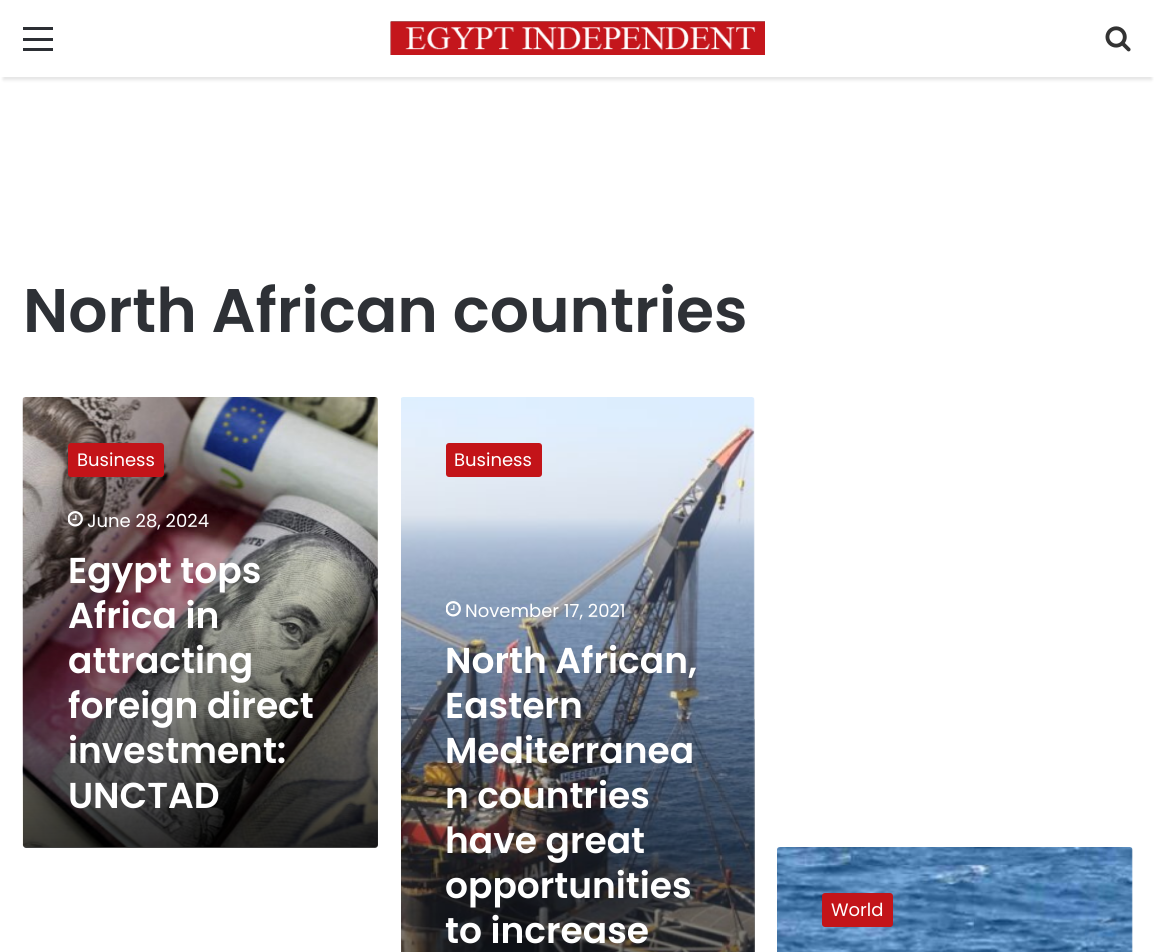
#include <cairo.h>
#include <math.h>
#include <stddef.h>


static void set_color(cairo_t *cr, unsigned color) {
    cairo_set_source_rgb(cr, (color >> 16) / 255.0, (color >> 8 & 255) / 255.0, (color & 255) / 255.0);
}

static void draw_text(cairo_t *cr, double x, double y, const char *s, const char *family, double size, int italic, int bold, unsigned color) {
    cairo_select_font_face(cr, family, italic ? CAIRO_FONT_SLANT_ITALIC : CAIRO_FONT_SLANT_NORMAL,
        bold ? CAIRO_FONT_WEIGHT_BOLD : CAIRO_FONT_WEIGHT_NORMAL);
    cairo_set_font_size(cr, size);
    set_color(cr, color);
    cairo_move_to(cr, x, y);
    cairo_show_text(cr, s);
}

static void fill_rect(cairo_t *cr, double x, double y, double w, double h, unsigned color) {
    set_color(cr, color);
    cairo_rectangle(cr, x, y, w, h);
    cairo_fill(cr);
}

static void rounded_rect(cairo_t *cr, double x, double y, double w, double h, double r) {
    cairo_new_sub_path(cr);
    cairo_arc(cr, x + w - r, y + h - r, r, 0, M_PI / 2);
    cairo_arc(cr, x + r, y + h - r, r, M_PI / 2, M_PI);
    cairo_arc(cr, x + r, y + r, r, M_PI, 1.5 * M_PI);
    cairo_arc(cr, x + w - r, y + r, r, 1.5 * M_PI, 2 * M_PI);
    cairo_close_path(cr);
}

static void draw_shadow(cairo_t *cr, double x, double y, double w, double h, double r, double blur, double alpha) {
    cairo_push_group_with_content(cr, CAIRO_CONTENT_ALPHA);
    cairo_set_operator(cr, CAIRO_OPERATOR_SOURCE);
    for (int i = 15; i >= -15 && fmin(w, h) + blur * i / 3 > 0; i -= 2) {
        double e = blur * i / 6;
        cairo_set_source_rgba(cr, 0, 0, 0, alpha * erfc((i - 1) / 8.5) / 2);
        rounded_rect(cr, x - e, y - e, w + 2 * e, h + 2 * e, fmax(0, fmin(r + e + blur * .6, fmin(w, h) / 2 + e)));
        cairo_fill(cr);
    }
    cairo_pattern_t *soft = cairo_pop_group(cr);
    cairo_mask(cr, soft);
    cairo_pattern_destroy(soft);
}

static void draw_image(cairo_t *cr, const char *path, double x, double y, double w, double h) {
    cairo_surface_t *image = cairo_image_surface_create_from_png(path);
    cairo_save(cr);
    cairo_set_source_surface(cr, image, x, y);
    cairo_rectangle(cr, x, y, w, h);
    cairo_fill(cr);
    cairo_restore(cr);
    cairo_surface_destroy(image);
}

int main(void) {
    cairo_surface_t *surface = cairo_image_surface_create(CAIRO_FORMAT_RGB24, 1154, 952);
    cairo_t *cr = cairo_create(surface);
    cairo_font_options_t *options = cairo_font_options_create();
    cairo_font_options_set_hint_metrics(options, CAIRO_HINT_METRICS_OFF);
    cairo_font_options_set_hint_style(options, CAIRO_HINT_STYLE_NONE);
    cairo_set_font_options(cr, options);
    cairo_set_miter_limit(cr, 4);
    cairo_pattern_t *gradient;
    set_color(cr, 0xFFFFFF);
    cairo_paint(cr);
    cairo_save(cr);
    cairo_set_fill_rule(cr, CAIRO_FILL_RULE_EVEN_ODD);
    cairo_new_path(cr);
    cairo_move_to(cr, 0, 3);
    cairo_line_to(cr, 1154, 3);
    cairo_line_to(cr, 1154, 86);
    cairo_line_to(cr, 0, 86);
    cairo_close_path(cr);
    cairo_move_to(cr, 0, 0);
    cairo_line_to(cr, 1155, 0);
    cairo_line_to(cr, 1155, 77);
    cairo_line_to(cr, 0, 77);
    cairo_close_path(cr);
    cairo_clip(cr);
    set_color(cr, 0x000000);
    draw_shadow(cr, 3, 9, 1149, 71, 0, 1.5, 0.1);
    cairo_restore(cr);
    cairo_set_source_rgba(cr, 1, 1, 1, 0.95);
    cairo_rectangle(cr, 2, 76, 1151, 1);
    cairo_fill(cr);
    fill_rect(cr, 23, 38, 30, 3, 0x2C2F34);
    fill_rect(cr, 23, 27, 30, 3, 0x2C2F34);
    fill_rect(cr, 23, 48, 30, 3, 0x2C2F34);
    draw_image(cr, "assets/img1.png", 390, 21, 375, 34);
    draw_image(cr, "assets/img2.png", 1105, 26, 26, 26);
    draw_text(cr, 23, 332, "North African countries", "Poppins SemiBold", 61.5, 0, 0, 0x2E3136);
    draw_image(cr, "assets/img3.png", 22, 397, 356, 450);
    set_color(cr, 0xC31419);
    rounded_rect(cr, 68, 443, 96, 34, 3);
    cairo_fill(cr);
    draw_text(cr, 77, 466, "Business", "Poppins", 18, 0, 0, 0xFFFFFF);
    draw_image(cr, "assets/img4.png", 68, 511, 15, 16);
    draw_text(cr, 87, 527, "June 28, 2024", "Poppins", 18, 0, 0, 0xFFFFFF);
    gradient = cairo_pattern_create_linear(200, 555, 200, 848);
    cairo_pattern_add_color_stop_rgba(gradient, 0, 0, 0, 0, 0);
    cairo_pattern_add_color_stop_rgba(gradient, 1, 0, 0, 0, 0.75);
    cairo_set_source(cr, gradient);
    cairo_pattern_destroy(gradient);
    cairo_new_path(cr);
    cairo_move_to(cr, 23, 555);
    cairo_line_to(cr, 378, 555);
    cairo_line_to(cr, 378, 845);
    cairo_curve_to(cr, 378, 846.5, 376.5, 848, 375, 848);
    cairo_line_to(cr, 26, 848);
    cairo_curve_to(cr, 24.5, 848, 23, 846.5, 23, 845);
    cairo_close_path(cr);
    cairo_fill(cr);
    draw_text(cr, 68, 583, "Egypt tops", "Poppins SemiBold", 36, 0, 0, 0xFFFFFF);
    draw_text(cr, 68, 628, "Africa in", "Poppins SemiBold", 36, 0, 0, 0xFFFFFF);
    draw_text(cr, 68, 673, "attracting", "Poppins SemiBold", 36, 0, 0, 0xFFFFFF);
    draw_text(cr, 68, 718, "foreign direct", "Poppins SemiBold", 36, 0, 0, 0xFFFFFF);
    draw_text(cr, 68, 763, "investment:", "Poppins SemiBold", 36, 0, 0, 0xFFFFFF);
    draw_text(cr, 68, 808, "UNCTAD", "Poppins SemiBold", 36, 0, 0, 0xFFFFFF);
    draw_image(cr, "assets/img5.png", 401, 397, 354, 555);
    set_color(cr, 0xC31419);
    rounded_rect(cr, 446, 443, 96, 34, 3);
    cairo_fill(cr);
    draw_text(cr, 454, 466, "Business", "Poppins", 18, 0, 0, 0xFFFFFF);
    draw_image(cr, "assets/img6.png", 446, 601, 15, 16);
    draw_text(cr, 465, 617, "November 17, 2021", "Poppins", 18, 0, 0, 0xFFFFFF);
    gradient = cairo_pattern_create_linear(578, 635, 578, 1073);
    cairo_pattern_add_color_stop_rgba(gradient, 0, 0, 0, 0, 0);
    cairo_pattern_add_color_stop_rgba(gradient, 1, 0, 0, 0, 0.75);
    cairo_set_source(cr, gradient);
    cairo_pattern_destroy(gradient);
    cairo_rectangle(cr, 401, 648, 354, 304);
    cairo_fill(cr);
    draw_text(cr, 445, 673, "North African,", "Poppins SemiBold", 36, 0, 0, 0xFFFFFF);
    draw_text(cr, 445, 718, "Eastern", "Poppins SemiBold", 36, 0, 0, 0xFFFFFF);
    draw_text(cr, 445, 763, "Mediterranea", "Poppins SemiBold", 36, 0, 0, 0xFFFFFF);
    draw_text(cr, 445, 808, "n countries", "Poppins SemiBold", 36, 0, 0, 0xFFFFFF);
    draw_text(cr, 445, 853, "have great", "Poppins SemiBold", 36, 0, 0, 0xFFFFFF);
    draw_text(cr, 445, 898, "opportunities", "Poppins SemiBold", 36, 0, 0, 0xFFFFFF);
    draw_text(cr, 445, 943, "to increase", "Poppins SemiBold", 36, 0, 0, 0xFFFFFF);
    draw_image(cr, "assets/img7.png", 777, 847, 356, 105);
    set_color(cr, 0xC31419);
    rounded_rect(cr, 822, 893, 71, 34, 3);
    cairo_fill(cr);
    draw_text(cr, 831, 916, "World", "Poppins", 18, 0, 0, 0xFFFFFF);
    cairo_surface_write_to_png(surface, "output.png");
    cairo_font_options_destroy(options);
    cairo_destroy(cr);
    cairo_surface_destroy(surface);
    return 0;
}
